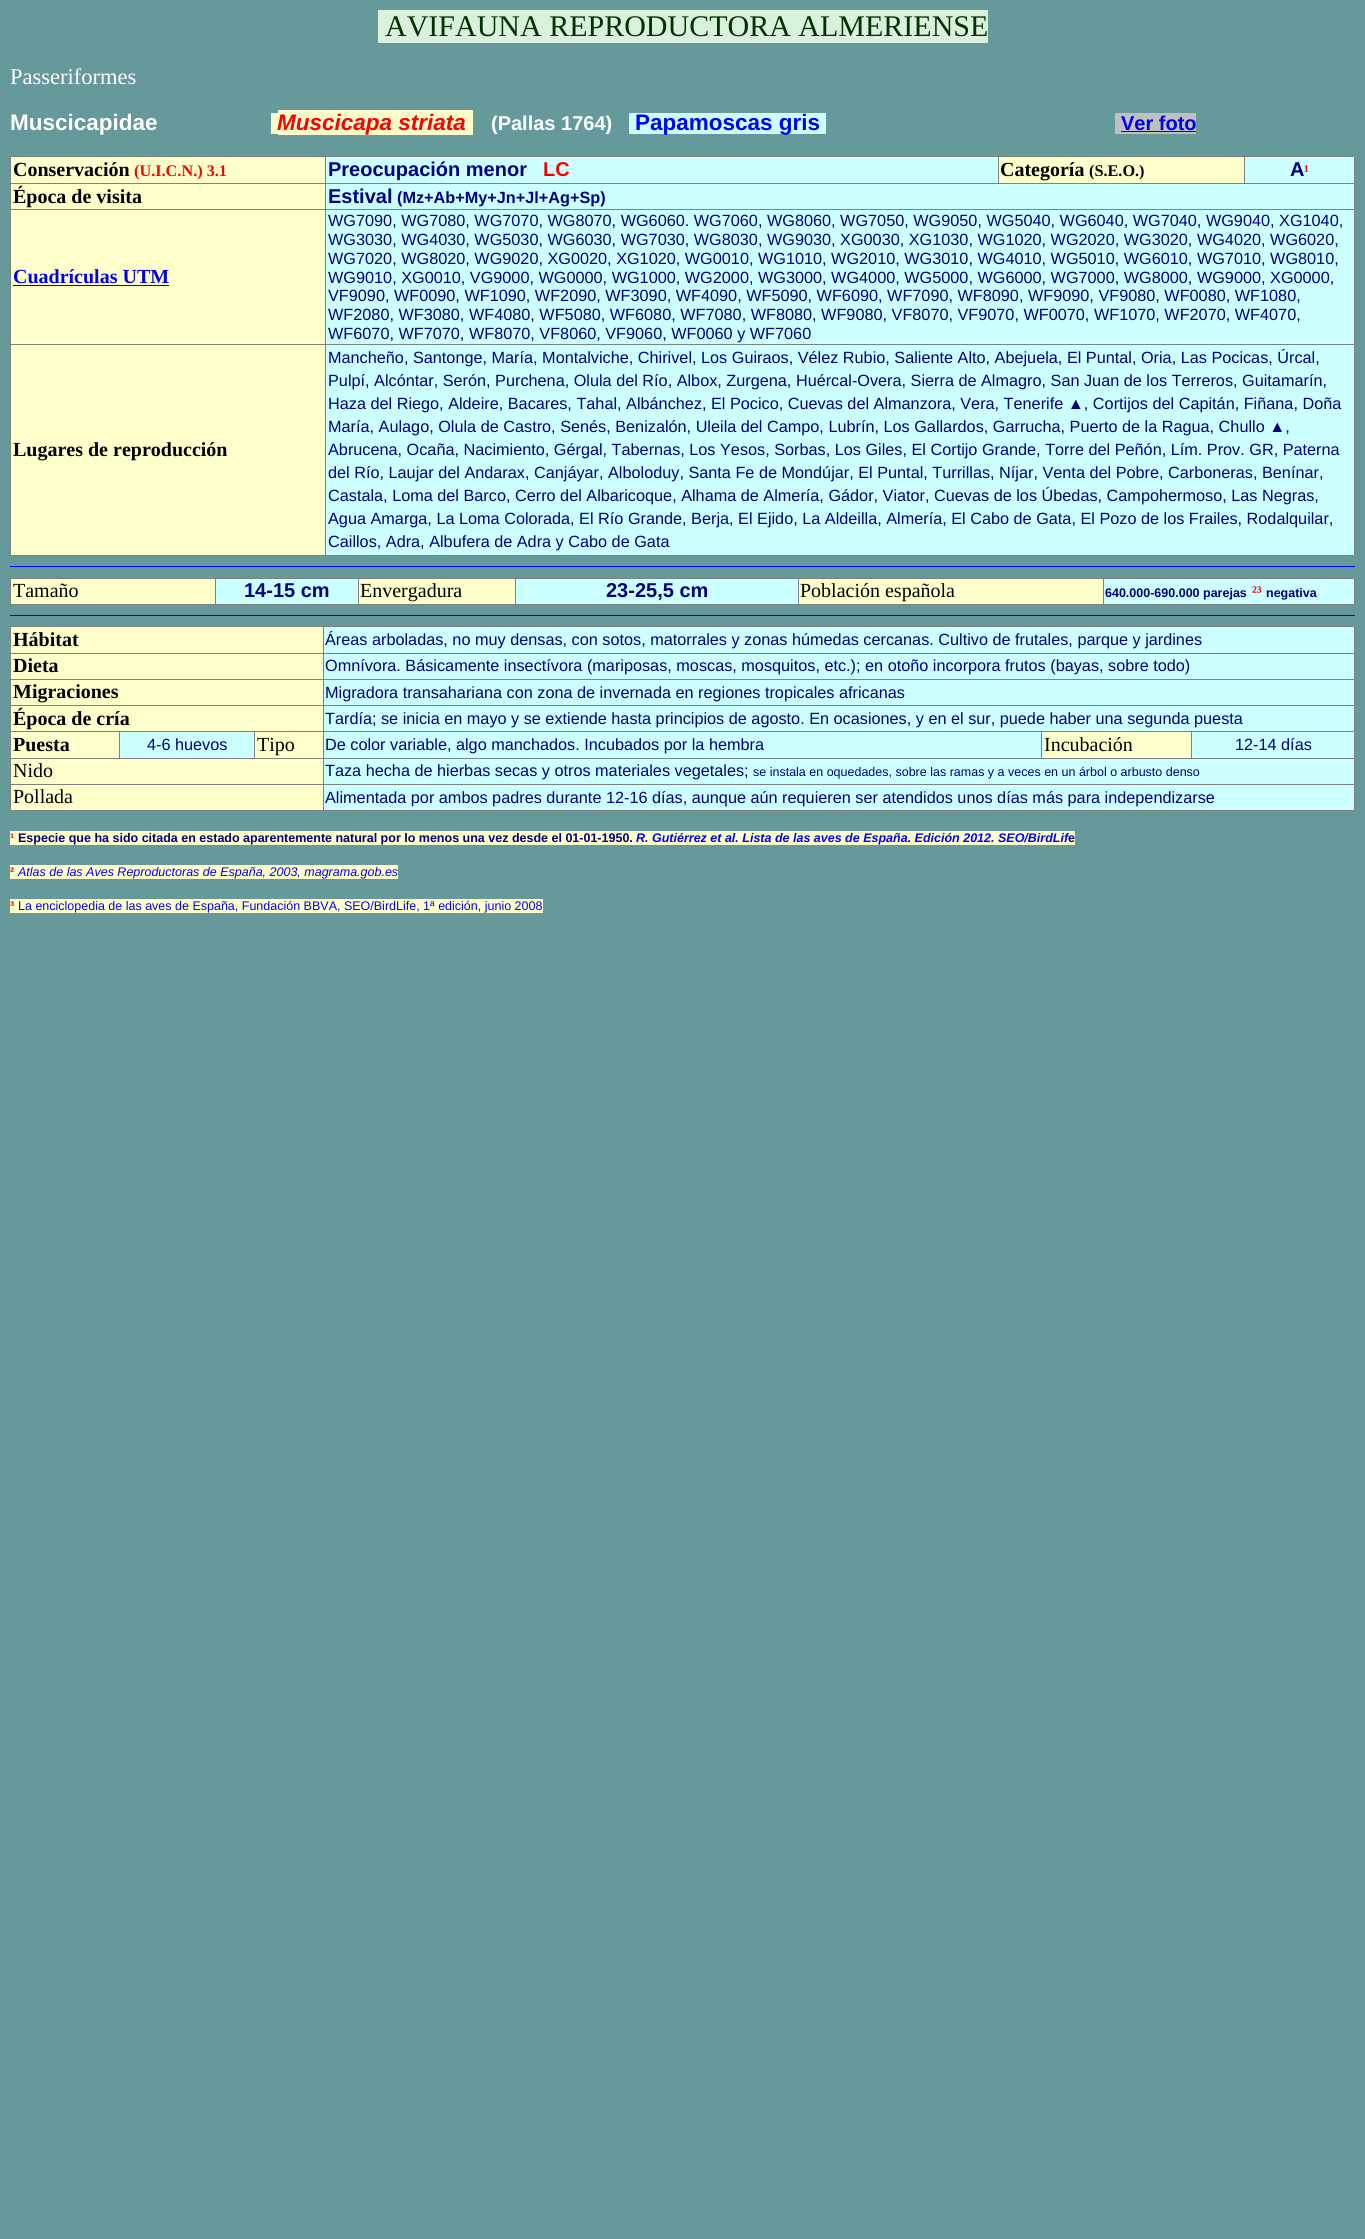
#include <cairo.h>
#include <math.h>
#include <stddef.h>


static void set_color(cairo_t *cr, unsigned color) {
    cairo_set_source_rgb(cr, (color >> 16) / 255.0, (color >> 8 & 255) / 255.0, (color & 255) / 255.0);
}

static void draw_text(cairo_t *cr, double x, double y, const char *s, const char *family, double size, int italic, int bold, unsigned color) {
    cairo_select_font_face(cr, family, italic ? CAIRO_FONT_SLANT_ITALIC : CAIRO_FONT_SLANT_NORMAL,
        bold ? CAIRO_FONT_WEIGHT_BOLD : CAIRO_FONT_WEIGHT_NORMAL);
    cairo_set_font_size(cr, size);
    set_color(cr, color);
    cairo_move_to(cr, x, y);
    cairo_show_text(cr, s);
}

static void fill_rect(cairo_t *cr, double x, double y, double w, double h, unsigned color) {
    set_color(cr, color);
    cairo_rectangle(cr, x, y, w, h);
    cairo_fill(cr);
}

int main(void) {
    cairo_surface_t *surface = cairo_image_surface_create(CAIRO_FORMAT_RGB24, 1365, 2239);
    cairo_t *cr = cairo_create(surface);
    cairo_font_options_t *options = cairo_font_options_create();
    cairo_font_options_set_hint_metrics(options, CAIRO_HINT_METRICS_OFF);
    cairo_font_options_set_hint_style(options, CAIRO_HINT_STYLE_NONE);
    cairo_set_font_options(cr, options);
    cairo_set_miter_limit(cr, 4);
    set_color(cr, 0x669999);
    cairo_paint(cr);
    fill_rect(cr, 378, 10, 610, 33, 0xD9F0DD);
    draw_text(cr, 385, 36, "AVIFAUNA REPRODUCTORA ALMERIENSE", "Liberation Serif", 30, 0, 0, 0x003300);
    draw_text(cr, 10, 84, "Passeriformes", "Liberation Serif", 22.5, 0, 0, 0xFFFFFF);
    draw_text(cr, 10, 130, "Muscicapidae", "Liberation Sans", 22.5, 0, 1, 0xFFFFFF);
    fill_rect(cr, 271, 113, 7, 21, 0xFFFFCC);
    fill_rect(cr, 278, 110, 195, 25, 0xFFFFCC);
    draw_text(cr, 277, 130, "Muscicapa striata", "Liberation Sans", 22.5, 1, 1, 0xFF0000);
    draw_text(cr, 491, 130, "(Pallas 1764)", "Liberation Sans", 20, 0, 1, 0xFFFFFF);
    fill_rect(cr, 629, 113, 197, 21, 0xCCFFFF);
    draw_text(cr, 635, 130, "Papamoscas gris", "Liberation Sans", 22.5, 0, 1, 0x0000FF);
    fill_rect(cr, 1115, 113, 81, 21, 0xC0C0C0);
    draw_text(cr, 1121, 130, "Ver foto", "Liberation Sans", 20, 0, 1, 0x0000EE);
    fill_rect(cr, 1121, 131, 75, 1, 0x0000EE);
    fill_rect(cr, 11, 157, 1343, 398, 0xCCFFFF);
    fill_rect(cr, 10, 156, 1345, 1, 0x808080);
    fill_rect(cr, 1354, 156, 1, 400, 0x808080);
    fill_rect(cr, 10, 555, 1345, 1, 0x808080);
    fill_rect(cr, 10, 156, 1, 400, 0x808080);
    fill_rect(cr, 11, 158, 314, 25, 0xFFFFCC);
    draw_text(cr, 13, 176, "Conservación", "Liberation Serif", 20, 0, 1, 0x000000);
    draw_text(cr, 134, 176, "(U.I.C.N.) 3.1", "Liberation Serif", 16.25, 0, 1, 0xFF0000);
    fill_rect(cr, 325, 183, 1030, 1, 0x808080);
    fill_rect(cr, 325, 209, 1030, 1, 0x808080);
    fill_rect(cr, 325, 344, 1030, 1, 0x808080);
    fill_rect(cr, 325, 344, 1, 212, 0x808080);
    fill_rect(cr, 10, 344, 316, 1, 0x808080);
    fill_rect(cr, 325, 209, 1, 136, 0x808080);
    fill_rect(cr, 10, 209, 316, 1, 0x808080);
    fill_rect(cr, 325, 183, 1, 27, 0x808080);
    fill_rect(cr, 10, 183, 316, 1, 0x808080);
    fill_rect(cr, 325, 156, 1, 28, 0x808080);
    draw_text(cr, 328, 176, "Preocupación menor", "Liberation Sans", 20, 0, 1, 0x000080);
    draw_text(cr, 543, 176, "LC", "Liberation Sans", 20, 0, 1, 0xFF0000);
    fill_rect(cr, 999, 158, 245, 25, 0xFFFFCC);
    fill_rect(cr, 998, 156, 1, 28, 0x808080);
    draw_text(cr, 1000, 176, "Categoría", "Liberation Serif", 20, 0, 1, 0x000000);
    draw_text(cr, 1089, 176, "(S.E.O.)", "Liberation Serif", 16.25, 0, 1, 0x000000);
    fill_rect(cr, 1244, 156, 1, 28, 0x808080);
    draw_text(cr, 1290, 176, "A", "Liberation Sans", 20, 0, 1, 0x000080);
    draw_text(cr, 1304, 176, "¹", "Liberation Serif", 16.25, 0, 1, 0xFF0000);
    fill_rect(cr, 11, 184, 314, 25, 0xFFFFCC);
    draw_text(cr, 13, 203, "Época de visita", "Liberation Serif", 20, 0, 1, 0x000000);
    draw_text(cr, 328, 203, "Estival", "Liberation Sans", 20, 0, 1, 0x000080);
    draw_text(cr, 397, 203, "(Mz+Ab+My+Jn+Jl+Ag+Sp)", "Liberation Sans", 16.25, 0, 1, 0x000080);
    fill_rect(cr, 11, 210, 314, 134, 0xFFFFCC);
    draw_text(cr, 13, 283, "Cuadrículas UTM", "Liberation Serif", 20, 0, 1, 0x0000EE);
    fill_rect(cr, 13, 285, 156, 1, 0x0000EE);
    draw_text(cr, 328, 226, "WG7090, WG7080, WG7070, WG8070, WG6060. WG7060, WG8060, WG7050, WG9050, WG5040, WG6040, WG7040, WG9040, XG1040,", "Liberation Sans", 16.25, 0, 0, 0x000080);
    draw_text(cr, 328, 245, "WG3030, WG4030, WG5030, WG6030, WG7030, WG8030, WG9030, XG0030, XG1030, WG1020, WG2020, WG3020, WG4020, WG6020,", "Liberation Sans", 16.25, 0, 0, 0x000080);
    draw_text(cr, 328, 264, "WG7020, WG8020, WG9020, XG0020, XG1020, WG0010, WG1010, WG2010, WG3010, WG4010, WG5010, WG6010, WG7010, WG8010,", "Liberation Sans", 16.25, 0, 0, 0x000080);
    draw_text(cr, 328, 283, "WG9010, XG0010, VG9000, WG0000, WG1000, WG2000, WG3000, WG4000, WG5000, WG6000, WG7000, WG8000, WG9000, XG0000,", "Liberation Sans", 16.25, 0, 0, 0x000080);
    draw_text(cr, 328, 301, "VF9090, WF0090, WF1090, WF2090, WF3090, WF4090, WF5090, WF6090, WF7090, WF8090, WF9090, VF9080, WF0080, WF1080,", "Liberation Sans", 16.25, 0, 0, 0x000080);
    draw_text(cr, 328, 320, "WF2080, WF3080, WF4080, WF5080, WF6080, WF7080, WF8080, WF9080, VF8070, VF9070, WF0070, WF1070, WF2070, WF4070,", "Liberation Sans", 16.25, 0, 0, 0x000080);
    draw_text(cr, 328, 339, "WF6070, WF7070, WF8070, VF8060, VF9060, WF0060 y WF7060", "Liberation Sans", 16.25, 0, 0, 0x000080);
    fill_rect(cr, 11, 345, 314, 210, 0xFFFFCC);
    draw_text(cr, 13, 456, "Lugares de reproducción", "Liberation Serif", 20, 0, 1, 0x000000);
    draw_text(cr, 328, 363, "Mancheño, Santonge, María, Montalviche, Chirivel, Los Guiraos, Vélez Rubio, Saliente Alto, Abejuela, El Puntal, Oria, Las Pocicas, Úrcal,", "Liberation Sans", 16.25, 0, 0, 0x000080);
    draw_text(cr, 328, 386, "Pulpí, Alcóntar, Serón, Purchena, Olula del Río, Albox, Zurgena, Huércal-Overa, Sierra de Almagro, San Juan de los Terreros, Guitamarín,", "Liberation Sans", 16.25, 0, 0, 0x000080);
    draw_text(cr, 328, 409, "Haza del Riego, Aldeire, Bacares, Tahal, Albánchez, El Pocico, Cuevas del Almanzora, Vera, Tenerife ▲, Cortijos del Capitán, Fiñana, Doña", "Liberation Sans", 16.25, 0, 0, 0x000080);
    draw_text(cr, 328, 432, "María, Aulago, Olula de Castro, Senés, Benizalón, Uleila del Campo, Lubrín, Los Gallardos, Garrucha, Puerto de la Ragua, Chullo ▲,", "Liberation Sans", 16.25, 0, 0, 0x000080);
    draw_text(cr, 328, 455, "Abrucena, Ocaña, Nacimiento, Gérgal, Tabernas, Los Yesos, Sorbas, Los Giles, El Cortijo Grande, Torre del Peñón, Lím. Prov. GR, Paterna", "Liberation Sans", 16.25, 0, 0, 0x000080);
    draw_text(cr, 328, 478, "del Río, Laujar del Andarax, Canjáyar, Alboloduy, Santa Fe de Mondújar, El Puntal, Turrillas, Níjar, Venta del Pobre, Carboneras, Benínar,", "Liberation Sans", 16.25, 0, 0, 0x000080);
    draw_text(cr, 328, 501, "Castala, Loma del Barco, Cerro del Albaricoque, Alhama de Almería, Gádor, Viator, Cuevas de los Úbedas, Campohermoso, Las Negras,", "Liberation Sans", 16.25, 0, 0, 0x000080);
    draw_text(cr, 328, 524, "Agua Amarga, La Loma Colorada, El Río Grande, Berja, El Ejido, La Aldeilla, Almería, El Cabo de Gata, El Pozo de los Frailes, Rodalquilar,", "Liberation Sans", 16.25, 0, 0, 0x000080);
    draw_text(cr, 328, 547, "Caillos, Adra, Albufera de Adra y Cabo de Gata", "Liberation Sans", 16.25, 0, 0, 0x000080);
    fill_rect(cr, 10, 566, 1345, 1, 0x0000FF);
    fill_rect(cr, 10, 578, 1345, 1, 0x808080);
    fill_rect(cr, 1354, 578, 1, 27, 0x808080);
    fill_rect(cr, 10, 604, 1345, 1, 0x808080);
    fill_rect(cr, 10, 578, 1, 27, 0x808080);
    fill_rect(cr, 11, 579, 204, 25, 0xFFFFCC);
    draw_text(cr, 13, 597, "Tamaño", "Liberation Serif", 20, 0, 0, 0x000000);
    fill_rect(cr, 216, 579, 142, 25, 0xCCFFFF);
    fill_rect(cr, 215, 578, 1, 27, 0x808080);
    draw_text(cr, 244, 597, "14-15 cm", "Liberation Sans", 20, 0, 1, 0x000080);
    fill_rect(cr, 359, 579, 156, 25, 0xFFFFCC);
    fill_rect(cr, 358, 578, 1, 27, 0x808080);
    draw_text(cr, 360, 597, "Envergadura", "Liberation Serif", 20, 0, 0, 0x000000);
    fill_rect(cr, 516, 579, 282, 25, 0xCCFFFF);
    fill_rect(cr, 515, 578, 1, 27, 0x808080);
    draw_text(cr, 606, 597, "23-25,5 cm", "Liberation Sans", 20, 0, 1, 0x000080);
    fill_rect(cr, 799, 579, 304, 25, 0xFFFFCC);
    fill_rect(cr, 798, 578, 1, 27, 0x808080);
    draw_text(cr, 800, 597, "Población española", "Liberation Serif", 20, 0, 0, 0x000000);
    fill_rect(cr, 1104, 579, 250, 25, 0xCCFFFF);
    fill_rect(cr, 1103, 578, 1, 27, 0x808080);
    draw_text(cr, 1105, 597, "640.000-690.000 parejas", "Liberation Sans", 12.5, 0, 1, 0x000080);
    draw_text(cr, 1252, 597, "²³", "Liberation Serif", 16.25, 0, 1, 0xFF0000);
    draw_text(cr, 1266, 597, "negativa", "Liberation Sans", 12.5, 0, 1, 0x000080);
    fill_rect(cr, 10, 615, 1345, 1, 0x0000FF);
    fill_rect(cr, 11, 627, 1180, 183, 0xFFFFCC);
    fill_rect(cr, 10, 626, 1345, 1, 0x808080);
    fill_rect(cr, 1354, 626, 1, 185, 0x808080);
    fill_rect(cr, 10, 810, 1345, 1, 0x808080);
    fill_rect(cr, 10, 626, 1, 185, 0x808080);
    draw_text(cr, 13, 646, "Hábitat", "Liberation Serif", 20, 0, 1, 0x000000);
    fill_rect(cr, 324, 627, 1030, 26, 0xCCFFFF);
    fill_rect(cr, 323, 653, 1032, 1, 0x808080);
    fill_rect(cr, 323, 679, 1032, 1, 0x808080);
    fill_rect(cr, 323, 705, 1032, 1, 0x808080);
    fill_rect(cr, 1191, 731, 164, 1, 0x808080);
    fill_rect(cr, 323, 758, 1032, 1, 0x808080);
    fill_rect(cr, 1191, 731, 1, 28, 0x808080);
    fill_rect(cr, 1041, 731, 152, 1, 0x808080);
    fill_rect(cr, 324, 732, 719, 26, 0xCCFFFF);
    fill_rect(cr, 1041, 731, 1, 28, 0x808080);
    fill_rect(cr, 323, 731, 720, 1, 0x808080);
    fill_rect(cr, 323, 784, 1032, 1, 0x808080);
    fill_rect(cr, 323, 784, 1, 27, 0x808080);
    fill_rect(cr, 10, 784, 314, 1, 0x808080);
    fill_rect(cr, 323, 758, 1, 27, 0x808080);
    fill_rect(cr, 10, 758, 314, 1, 0x808080);
    fill_rect(cr, 323, 731, 1, 28, 0x808080);
    fill_rect(cr, 254, 731, 70, 1, 0x808080);
    fill_rect(cr, 323, 705, 1, 28, 0x808080);
    fill_rect(cr, 10, 705, 314, 1, 0x808080);
    fill_rect(cr, 323, 679, 1, 27, 0x808080);
    fill_rect(cr, 10, 679, 314, 1, 0x808080);
    fill_rect(cr, 323, 653, 1, 27, 0x808080);
    fill_rect(cr, 10, 653, 314, 1, 0x808080);
    fill_rect(cr, 323, 626, 1, 28, 0x808080);
    draw_text(cr, 325, 645, "Áreas arboladas, no muy densas, con sotos, matorrales y zonas húmedas cercanas. Cultivo de frutales, parque y jardines", "Liberation Sans", 16.25, 0, 0, 0x000080);
    draw_text(cr, 13, 672, "Dieta", "Liberation Serif", 20, 0, 1, 0x000000);
    fill_rect(cr, 324, 654, 1030, 25, 0xCCFFFF);
    draw_text(cr, 325, 671, "Omnívora. Básicamente insectívora (mariposas, moscas, mosquitos, etc.); en otoño incorpora frutos (bayas, sobre todo)", "Liberation Sans", 16.25, 0, 0, 0x000080);
    draw_text(cr, 13, 698, "Migraciones", "Liberation Serif", 20, 0, 1, 0x000000);
    fill_rect(cr, 324, 680, 1030, 25, 0xCCFFFF);
    draw_text(cr, 325, 698, "Migradora transahariana con zona de invernada en regiones tropicales africanas", "Liberation Sans", 16.25, 0, 0, 0x000080);
    draw_text(cr, 13, 725, "Época de cría", "Liberation Serif", 20, 0, 1, 0x000000);
    fill_rect(cr, 324, 706, 1030, 25, 0xCCFFFF);
    draw_text(cr, 325, 724, "Tardía; se inicia en mayo y se extiende hasta principios de agosto. En ocasiones, y en el sur, puede haber una segunda puesta", "Liberation Sans", 16.25, 0, 0, 0x000080);
    fill_rect(cr, 254, 731, 1, 28, 0x808080);
    fill_rect(cr, 119, 731, 136, 1, 0x808080);
    fill_rect(cr, 119, 731, 1, 28, 0x808080);
    fill_rect(cr, 10, 731, 110, 1, 0x808080);
    draw_text(cr, 13, 751, "Puesta", "Liberation Serif", 20, 0, 1, 0x000000);
    fill_rect(cr, 120, 732, 134, 26, 0xCCFFFF);
    draw_text(cr, 147, 750, "4-6 huevos", "Liberation Sans", 16.25, 0, 0, 0x000080);
    draw_text(cr, 257, 751, "Tipo", "Liberation Serif", 20, 0, 0, 0x000000);
    draw_text(cr, 325, 750, "De color variable, algo manchados. Incubados por la hembra", "Liberation Sans", 16.25, 0, 0, 0x000080);
    draw_text(cr, 1044, 751, "Incubación", "Liberation Serif", 20, 0, 0, 0x000000);
    fill_rect(cr, 1192, 732, 162, 26, 0xCCFFFF);
    draw_text(cr, 1235, 750, "12-14 días", "Liberation Sans", 16.25, 0, 0, 0x000080);
    draw_text(cr, 13, 777, "Nido", "Liberation Serif", 20, 0, 0, 0x000000);
    fill_rect(cr, 324, 759, 1030, 25, 0xCCFFFF);
    draw_text(cr, 325, 776, "Taza hecha de hierbas secas y otros materiales vegetales;", "Liberation Sans", 16.25, 0, 0, 0x000080);
    draw_text(cr, 753, 776, "se instala en oquedades, sobre las ramas y a veces en un árbol o arbusto denso", "Liberation Sans", 12.5, 0, 0, 0x000080);
    draw_text(cr, 13, 803, "Pollada", "Liberation Serif", 20, 0, 0, 0x000000);
    fill_rect(cr, 324, 785, 1030, 25, 0xCCFFFF);
    draw_text(cr, 325, 803, "Alimentada por ambos padres durante 12-16 días, aunque aún requieren ser atendidos unos días más para independizarse", "Liberation Sans", 16.25, 0, 0, 0x000080);
    fill_rect(cr, 10, 831, 1065, 14, 0xFFFFCC);
    draw_text(cr, 10, 842, "¹", "Liberation Sans", 12.5, 0, 1, 0xFF0000);
    draw_text(cr, 18, 842, "Especie que ha sido citada en estado aparentemente natural por lo menos una vez desde el 01-01-1950.", "Liberation Sans", 12.5, 0, 1, 0x000080);
    draw_text(cr, 636, 842, "R. Gutiérrez et al. Lista de las aves de España. Edición 2012. SEO/BirdLif", "Liberation Sans", 12.5, 1, 1, 0x0000FF);
    draw_text(cr, 1068, 842, "e", "Liberation Sans", 12.5, 0, 1, 0x000080);
    fill_rect(cr, 10, 865, 388, 14, 0xFFFFCC);
    draw_text(cr, 10, 876, "²", "Liberation Sans", 12.5, 0, 1, 0xFF0000);
    draw_text(cr, 18, 876, "Atlas de las Aves Reproductoras de España, 2003, magrama.gob.es", "Liberation Sans", 12.5, 1, 0, 0x0000FF);
    fill_rect(cr, 10, 899, 533, 14, 0xFFFFCC);
    draw_text(cr, 10, 910, "³", "Liberation Sans", 12.5, 0, 1, 0xFF0000);
    draw_text(cr, 18, 910, "La enciclopedia de las aves de España, Fundación BBVA, SEO/BirdLife, 1ª edición, junio 2008", "Liberation Sans", 12.5, 0, 0, 0x0000FF);
    cairo_surface_write_to_png(surface, "output.png");
    cairo_font_options_destroy(options);
    cairo_destroy(cr);
    cairo_surface_destroy(surface);
    return 0;
}
